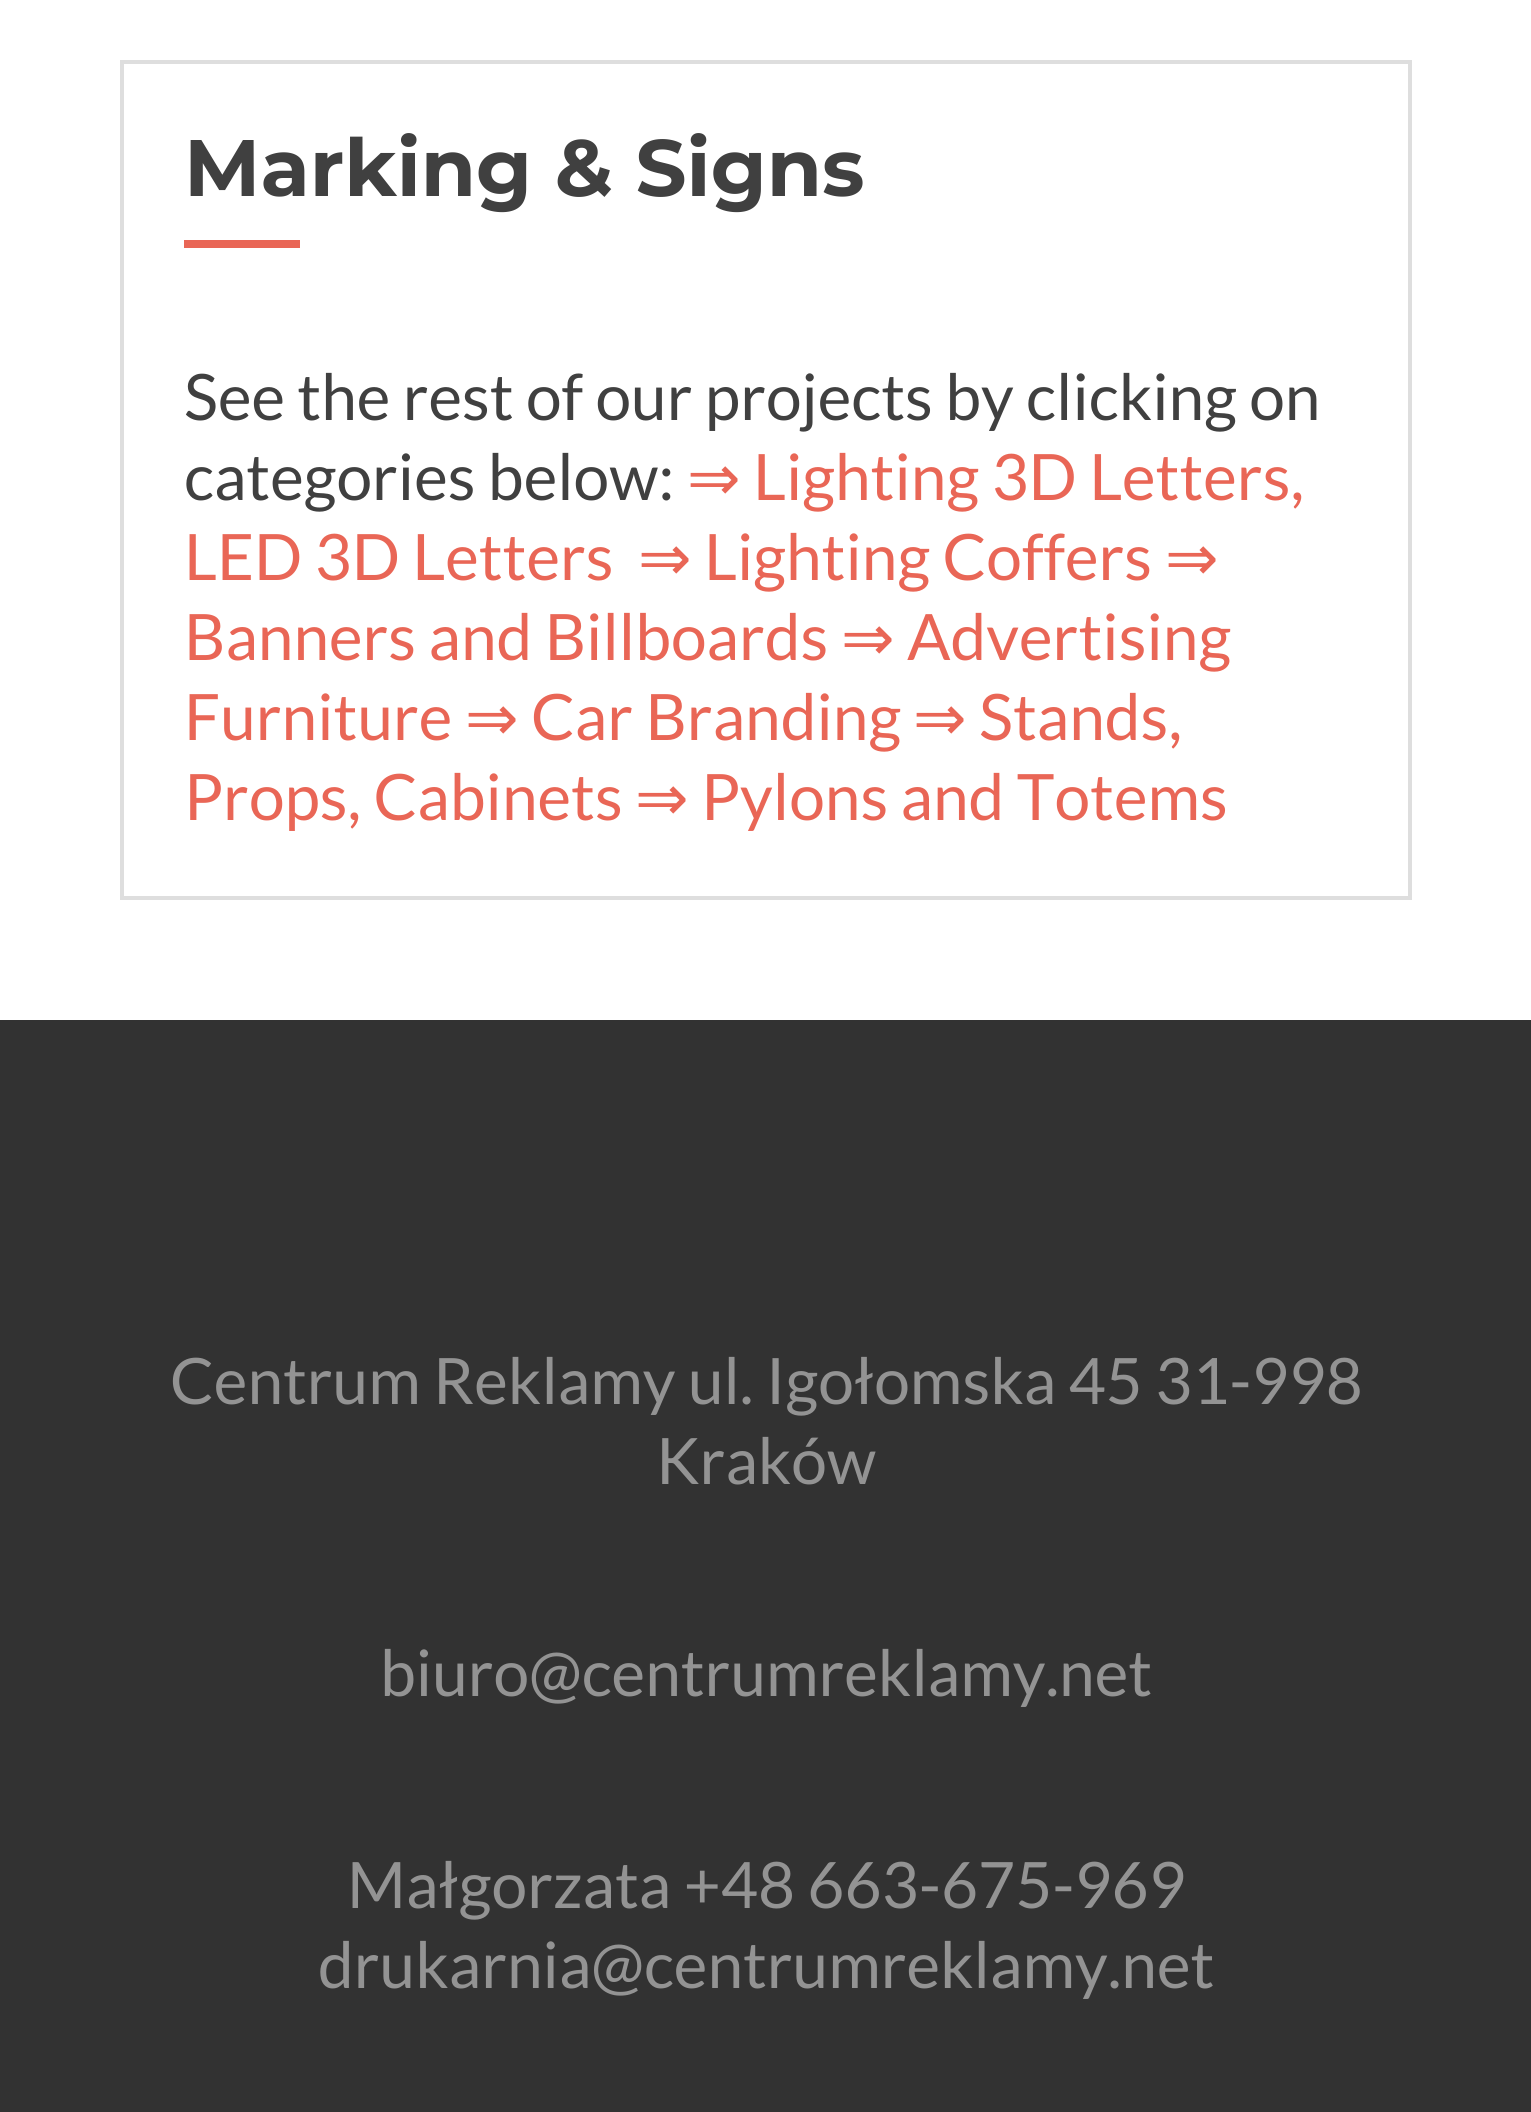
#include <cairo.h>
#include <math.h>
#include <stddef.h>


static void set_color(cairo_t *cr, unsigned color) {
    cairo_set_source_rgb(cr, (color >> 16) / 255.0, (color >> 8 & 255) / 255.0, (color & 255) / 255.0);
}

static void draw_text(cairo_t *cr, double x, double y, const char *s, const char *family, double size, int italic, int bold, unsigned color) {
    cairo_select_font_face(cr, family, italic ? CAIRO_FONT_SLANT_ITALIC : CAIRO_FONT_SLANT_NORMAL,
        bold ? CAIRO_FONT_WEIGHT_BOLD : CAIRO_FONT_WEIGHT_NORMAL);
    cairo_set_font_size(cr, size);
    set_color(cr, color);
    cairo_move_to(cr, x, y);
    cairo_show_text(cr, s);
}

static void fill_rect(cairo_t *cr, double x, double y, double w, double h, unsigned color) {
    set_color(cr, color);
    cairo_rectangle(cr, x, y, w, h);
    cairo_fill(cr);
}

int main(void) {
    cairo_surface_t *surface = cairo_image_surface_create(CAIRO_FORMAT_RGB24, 1531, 2112);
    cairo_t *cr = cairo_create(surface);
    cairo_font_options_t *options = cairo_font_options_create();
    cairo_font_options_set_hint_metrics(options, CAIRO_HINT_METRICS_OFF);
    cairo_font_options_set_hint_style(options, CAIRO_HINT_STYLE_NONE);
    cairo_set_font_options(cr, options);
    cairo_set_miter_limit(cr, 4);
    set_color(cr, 0xFFFFFF);
    cairo_paint(cr);
    cairo_rectangle(cr, 122, 62, 1288, 836);
    set_color(cr, 0xDEDEDE);
    cairo_set_line_width(cr, 4);
    cairo_stroke(cr);
    draw_text(cr, 184, 196, "Marking & Signs", "Montserrat", 80, 0, 1, 0x404040);
    fill_rect(cr, 184, 240, 116, 8, 0xE96656);
    draw_text(cr, 184, 420, "See the rest of our projects by clicking on", "Lato", 64, 0, 0, 0x404040);
    draw_text(cr, 184, 500, "categories below:", "Lato", 64, 0, 0, 0x404040);
    draw_text(cr, 687, 500, "⇒", "DejaVu Sans", 64, 0, 0, 0xE96656);
    draw_text(cr, 753, 500, "Lighting 3D Letters,", "Lato", 64, 0, 0, 0xE96656);
    draw_text(cr, 184, 580, "LED 3D Letters", "Lato", 64, 0, 0, 0xE96656);
    draw_text(cr, 638, 580, "⇒", "DejaVu Sans", 64, 0, 0, 0xE96656);
    draw_text(cr, 704, 580, "Lighting Coffers", "Lato", 64, 0, 0, 0xE96656);
    draw_text(cr, 1165, 580, "⇒", "DejaVu Sans", 64, 0, 0, 0xE96656);
    draw_text(cr, 184, 660, "Banners and Billboards", "Lato", 64, 0, 0, 0xE96656);
    draw_text(cr, 841, 660, "⇒", "DejaVu Sans", 64, 0, 0, 0xE96656);
    draw_text(cr, 907, 660, "Advertising", "Lato", 64, 0, 0, 0xE96656);
    draw_text(cr, 184, 740, "Furniture", "Lato", 64, 0, 0, 0xE96656);
    draw_text(cr, 465, 740, "⇒", "DejaVu Sans", 64, 0, 0, 0xE96656);
    draw_text(cr, 531, 740, "Car Branding", "Lato", 64, 0, 0, 0xE96656);
    draw_text(cr, 913, 740, "⇒", "DejaVu Sans", 64, 0, 0, 0xE96656);
    draw_text(cr, 979, 740, "Stands,", "Lato", 64, 0, 0, 0xE96656);
    draw_text(cr, 184, 820, "Props, Cabinets", "Lato", 64, 0, 0, 0xE96656);
    draw_text(cr, 635, 820, "⇒", "DejaVu Sans", 64, 0, 0, 0xE96656);
    draw_text(cr, 701, 820, "Pylons and Totems", "Lato", 64, 0, 0, 0xE96656);
    fill_rect(cr, 0, 1020, 1531, 1092, 0x323232);
    draw_text(cr, 170, 1404, "Centrum Reklamy ul. Igołomska 45 31-998", "Lato", 64, 0, 0, 0x939393);
    draw_text(cr, 656, 1484, "Kraków", "Lato", 64, 0, 0, 0x939393);
    draw_text(cr, 380, 1696, "biuro@centrumreklamy.net", "Lato", 64, 0, 0, 0x939393);
    draw_text(cr, 347, 1908, "Małgorzata +48 663-675-969", "Lato", 64, 0, 0, 0x939393);
    draw_text(cr, 318, 1988, "drukarnia@centrumreklamy.net", "Lato", 64, 0, 0, 0x939393);
    cairo_surface_write_to_png(surface, "output.png");
    cairo_font_options_destroy(options);
    cairo_destroy(cr);
    cairo_surface_destroy(surface);
    return 0;
}
